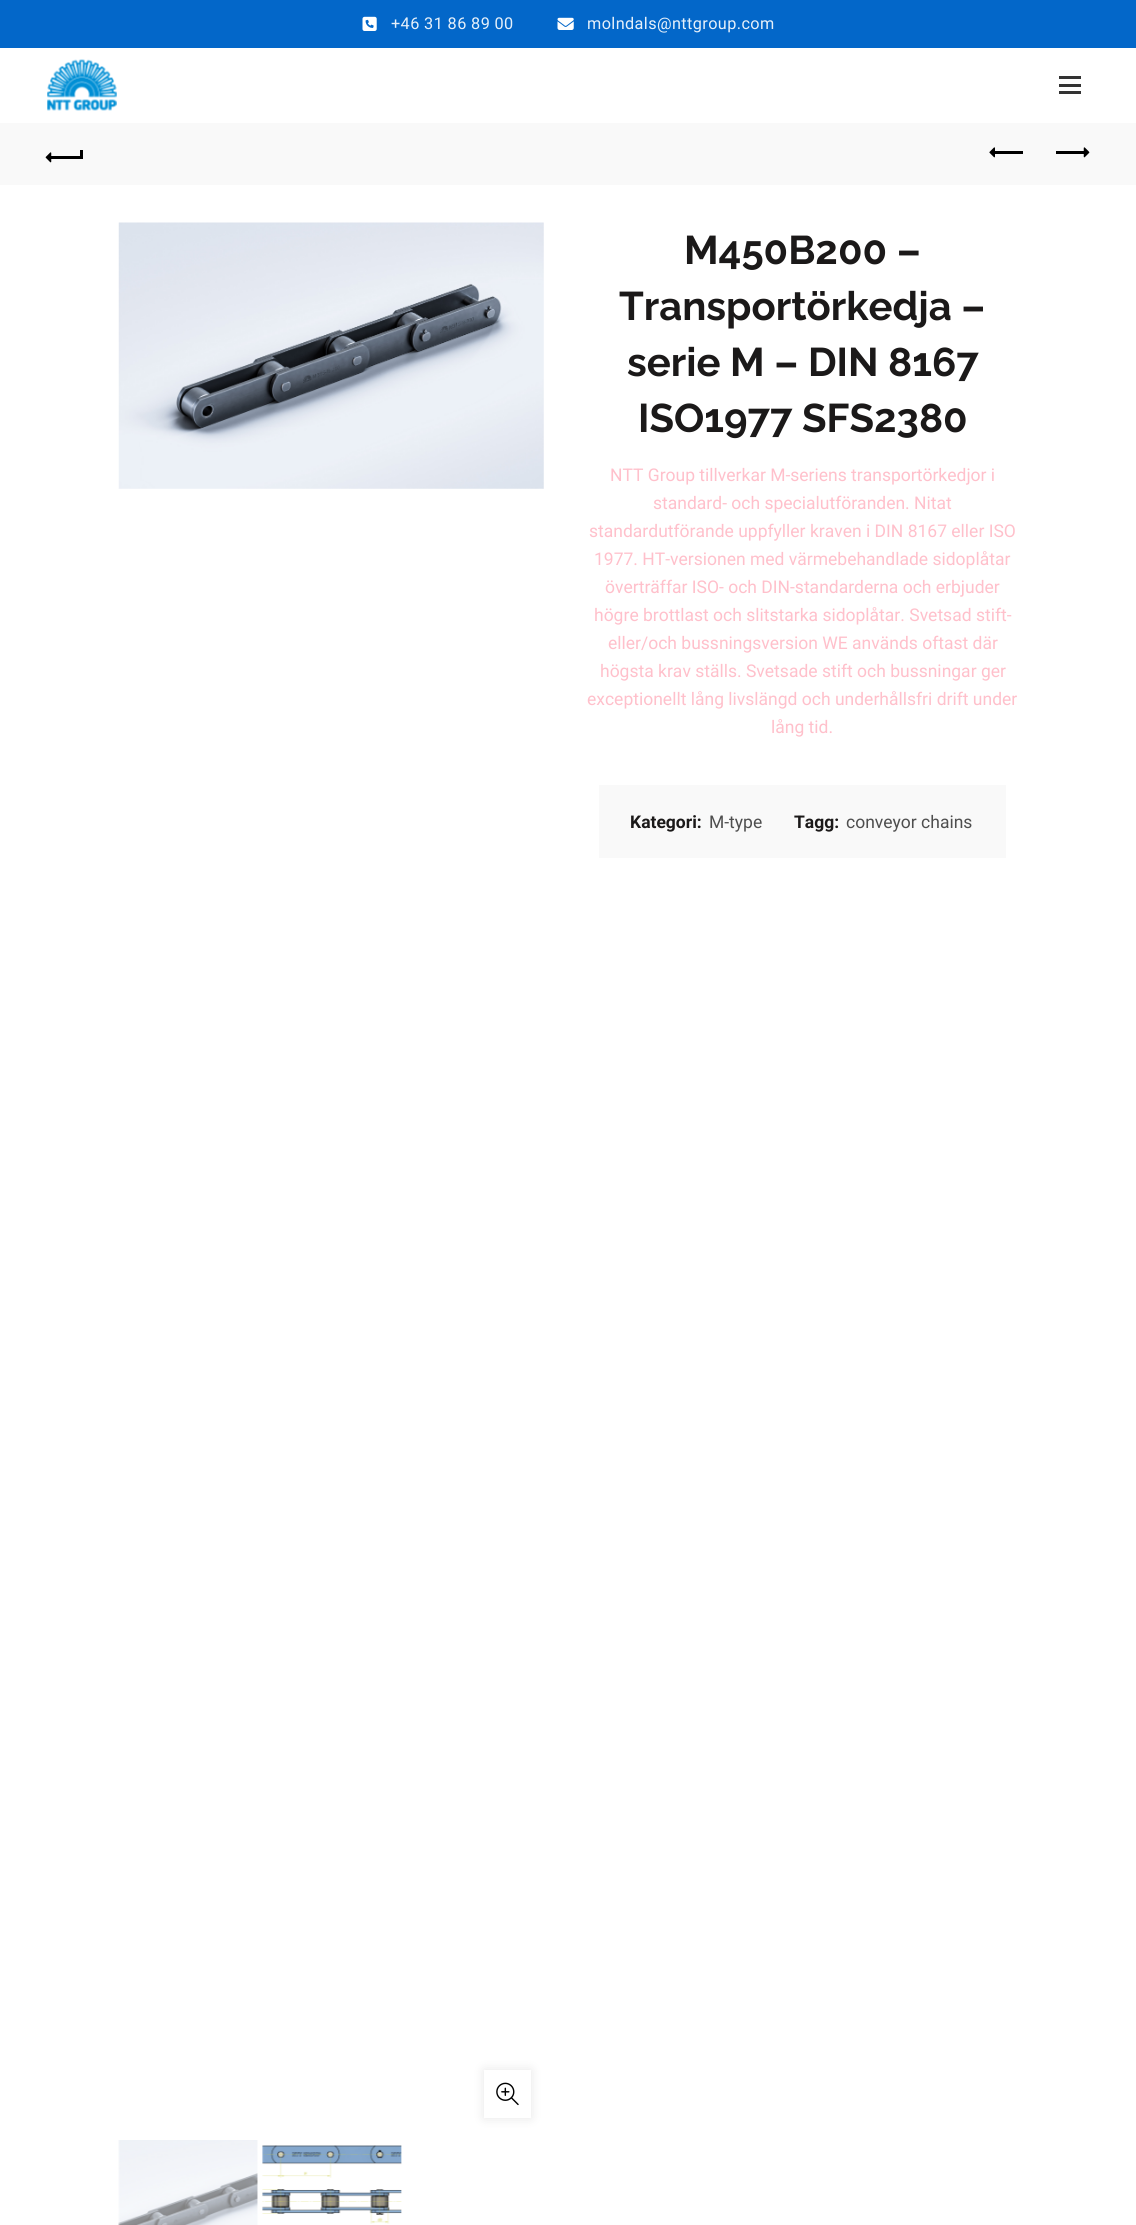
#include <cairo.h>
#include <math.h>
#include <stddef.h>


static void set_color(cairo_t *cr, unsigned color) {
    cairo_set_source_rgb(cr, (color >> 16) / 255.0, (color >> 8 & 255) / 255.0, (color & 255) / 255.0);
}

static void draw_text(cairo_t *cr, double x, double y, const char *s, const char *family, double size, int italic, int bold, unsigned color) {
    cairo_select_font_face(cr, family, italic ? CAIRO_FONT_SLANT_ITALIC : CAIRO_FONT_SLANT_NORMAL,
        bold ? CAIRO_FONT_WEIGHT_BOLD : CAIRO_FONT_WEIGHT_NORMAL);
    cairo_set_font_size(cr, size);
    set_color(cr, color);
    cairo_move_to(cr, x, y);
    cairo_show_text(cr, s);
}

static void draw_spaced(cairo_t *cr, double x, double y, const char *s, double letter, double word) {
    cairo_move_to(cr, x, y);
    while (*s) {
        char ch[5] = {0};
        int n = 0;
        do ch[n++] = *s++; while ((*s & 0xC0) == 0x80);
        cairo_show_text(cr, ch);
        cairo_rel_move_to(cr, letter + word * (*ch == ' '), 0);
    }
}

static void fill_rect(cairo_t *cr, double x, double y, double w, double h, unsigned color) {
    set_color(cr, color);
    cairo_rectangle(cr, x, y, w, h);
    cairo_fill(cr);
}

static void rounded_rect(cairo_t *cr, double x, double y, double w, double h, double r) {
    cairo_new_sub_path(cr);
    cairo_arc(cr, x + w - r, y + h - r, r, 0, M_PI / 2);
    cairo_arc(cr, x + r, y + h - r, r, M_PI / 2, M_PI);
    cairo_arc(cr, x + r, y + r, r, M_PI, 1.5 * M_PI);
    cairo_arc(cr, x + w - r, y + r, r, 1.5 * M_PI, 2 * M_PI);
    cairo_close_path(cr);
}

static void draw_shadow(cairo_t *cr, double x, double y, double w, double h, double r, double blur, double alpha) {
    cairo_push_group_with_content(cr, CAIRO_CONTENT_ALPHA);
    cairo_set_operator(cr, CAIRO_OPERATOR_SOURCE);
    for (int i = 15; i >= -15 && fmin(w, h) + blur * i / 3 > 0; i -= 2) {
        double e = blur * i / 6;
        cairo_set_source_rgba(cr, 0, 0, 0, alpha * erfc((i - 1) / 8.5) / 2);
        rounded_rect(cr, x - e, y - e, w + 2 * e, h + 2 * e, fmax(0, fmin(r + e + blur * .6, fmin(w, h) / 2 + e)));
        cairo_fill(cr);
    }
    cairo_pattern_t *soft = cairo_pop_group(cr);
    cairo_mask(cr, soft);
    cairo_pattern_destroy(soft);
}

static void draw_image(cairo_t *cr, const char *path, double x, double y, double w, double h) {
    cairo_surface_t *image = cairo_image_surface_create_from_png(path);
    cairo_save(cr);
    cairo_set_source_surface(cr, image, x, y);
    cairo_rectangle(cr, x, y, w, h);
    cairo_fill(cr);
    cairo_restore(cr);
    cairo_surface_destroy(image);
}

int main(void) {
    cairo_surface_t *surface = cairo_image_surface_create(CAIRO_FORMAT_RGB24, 1136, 2225);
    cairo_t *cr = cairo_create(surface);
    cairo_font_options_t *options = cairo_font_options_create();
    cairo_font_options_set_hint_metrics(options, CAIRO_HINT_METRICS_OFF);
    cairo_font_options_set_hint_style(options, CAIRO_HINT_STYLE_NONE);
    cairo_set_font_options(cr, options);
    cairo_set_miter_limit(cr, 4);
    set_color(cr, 0xFFFFFF);
    cairo_paint(cr);
    fill_rect(cr, 0, 0, 1136, 48, 0x0367C9);
    draw_image(cr, "assets/img1.png", 362, 16, 15, 15);
    cairo_select_font_face(cr, "Roboto", CAIRO_FONT_SLANT_NORMAL, CAIRO_FONT_WEIGHT_NORMAL);
    cairo_set_font_size(cr, 16.25);
    set_color(cr, 0xE6F0FA);
    draw_spaced(cr, 391, 29, "+46 31 86 89 00", 0.4, 0);
    draw_image(cr, "assets/img2.png", 557, 17, 17, 13);
    draw_spaced(cr, 587, 29, "molndals@nttgroup.com", 0.4, 0);
    draw_image(cr, "assets/img3.png", 47, 59, 70, 52);
    fill_rect(cr, 1059, 84, 22, 3, 0x333333);
    fill_rect(cr, 1059, 76, 22, 3, 0x333333);
    fill_rect(cr, 1059, 91, 22, 3, 0x333333);
    fill_rect(cr, 0, 123, 1136, 62, 0xF9F9F9);
    fill_rect(cr, 50, 156, 31, 3, 0x000000);
    draw_image(cr, "assets/img4.png", 45, 152, 7, 11);
    fill_rect(cr, 80, 150, 3, 9, 0x000000);
    fill_rect(cr, 994, 151, 29, 3, 0x000000);
    draw_image(cr, "assets/img5.png", 989, 147, 6, 11);
    fill_rect(cr, 1056, 151, 29, 3, 0x000000);
    draw_image(cr, "assets/img6.png", 1083, 147, 7, 11);
    draw_image(cr, "assets/img7.png", 118, 222, 426, 267);
    set_color(cr, 0x000000);
    draw_shadow(cr, 484, 2070, 47, 48, 0, 5.5, 0.1);
    fill_rect(cr, 484, 2070, 47, 48, 0xFFFFFF);
    draw_image(cr, "assets/img8.png", 496, 2082, 23, 24);
    draw_image(cr, "assets/img9.png", 118, 2140, 140, 85);
    draw_image(cr, "assets/img10.png", 262, 2145, 140, 79);
    draw_text(cr, 684, 264, "M450B200 –", "Raleway", 40, 0, 1, 0x1B1919);
    draw_text(cr, 619, 320, "Transportörkedja –", "Raleway", 40, 0, 1, 0x1B1919);
    draw_text(cr, 627, 376, "serie M – DIN 8167", "Raleway", 40, 0, 1, 0x1B1919);
    draw_text(cr, 638, 432, "ISO1977 SFS2380", "Raleway", 40, 0, 1, 0x1B1919);
    draw_text(cr, 610, 481, "NTT Group tillverkar M-seriens transportörkedjor i", "Roboto", 17.5, 0, 0, 0xFFC0CB);
    draw_text(cr, 653, 509, "standard- och specialutföranden. Nitat", "Roboto", 17.5, 0, 0, 0xFFC0CB);
    draw_text(cr, 589, 537, "standardutförande uppfyller kraven i DIN 8167 eller ISO", "Roboto", 17.5, 0, 0, 0xFFC0CB);
    draw_text(cr, 594, 565, "1977. HT-versionen med värmebehandlade sidoplåtar", "Roboto", 17.5, 0, 0, 0xFFC0CB);
    draw_text(cr, 605, 593, "överträffar ISO- och DIN-standarderna och erbjuder", "Roboto", 17.5, 0, 0, 0xFFC0CB);
    draw_text(cr, 594, 621, "högre brottlast och slitstarka sidoplåtar. Svetsad stift-", "Roboto", 17.5, 0, 0, 0xFFC0CB);
    draw_text(cr, 608, 649, "eller/och bussningsversion WE används oftast där", "Roboto", 17.5, 0, 0, 0xFFC0CB);
    draw_text(cr, 600, 677, "högsta krav ställs. Svetsade stift och bussningar ger", "Roboto", 17.5, 0, 0, 0xFFC0CB);
    draw_text(cr, 587, 705, "exceptionellt lång livslängd och underhållsfri drift under", "Roboto", 17.5, 0, 0, 0xFFC0CB);
    draw_text(cr, 771, 733, "lång tid.", "Roboto", 17.5, 0, 0, 0xFFC0CB);
    fill_rect(cr, 599, 785, 407, 73, 0xF9F9F9);
    draw_text(cr, 630, 828, "Kategori:", "Roboto", 17.5, 0, 1, 0x1B1919);
    draw_text(cr, 709, 828, "M-type", "Roboto", 17.5, 0, 0, 0x4E4E4E);
    draw_text(cr, 794, 828, "Tagg:", "Roboto", 17.5, 0, 1, 0x1B1919);
    draw_text(cr, 846, 828, "conveyor chains", "Roboto", 17.5, 0, 0, 0x4E4E4E);
    cairo_surface_write_to_png(surface, "output.png");
    cairo_font_options_destroy(options);
    cairo_destroy(cr);
    cairo_surface_destroy(surface);
    return 0;
}
